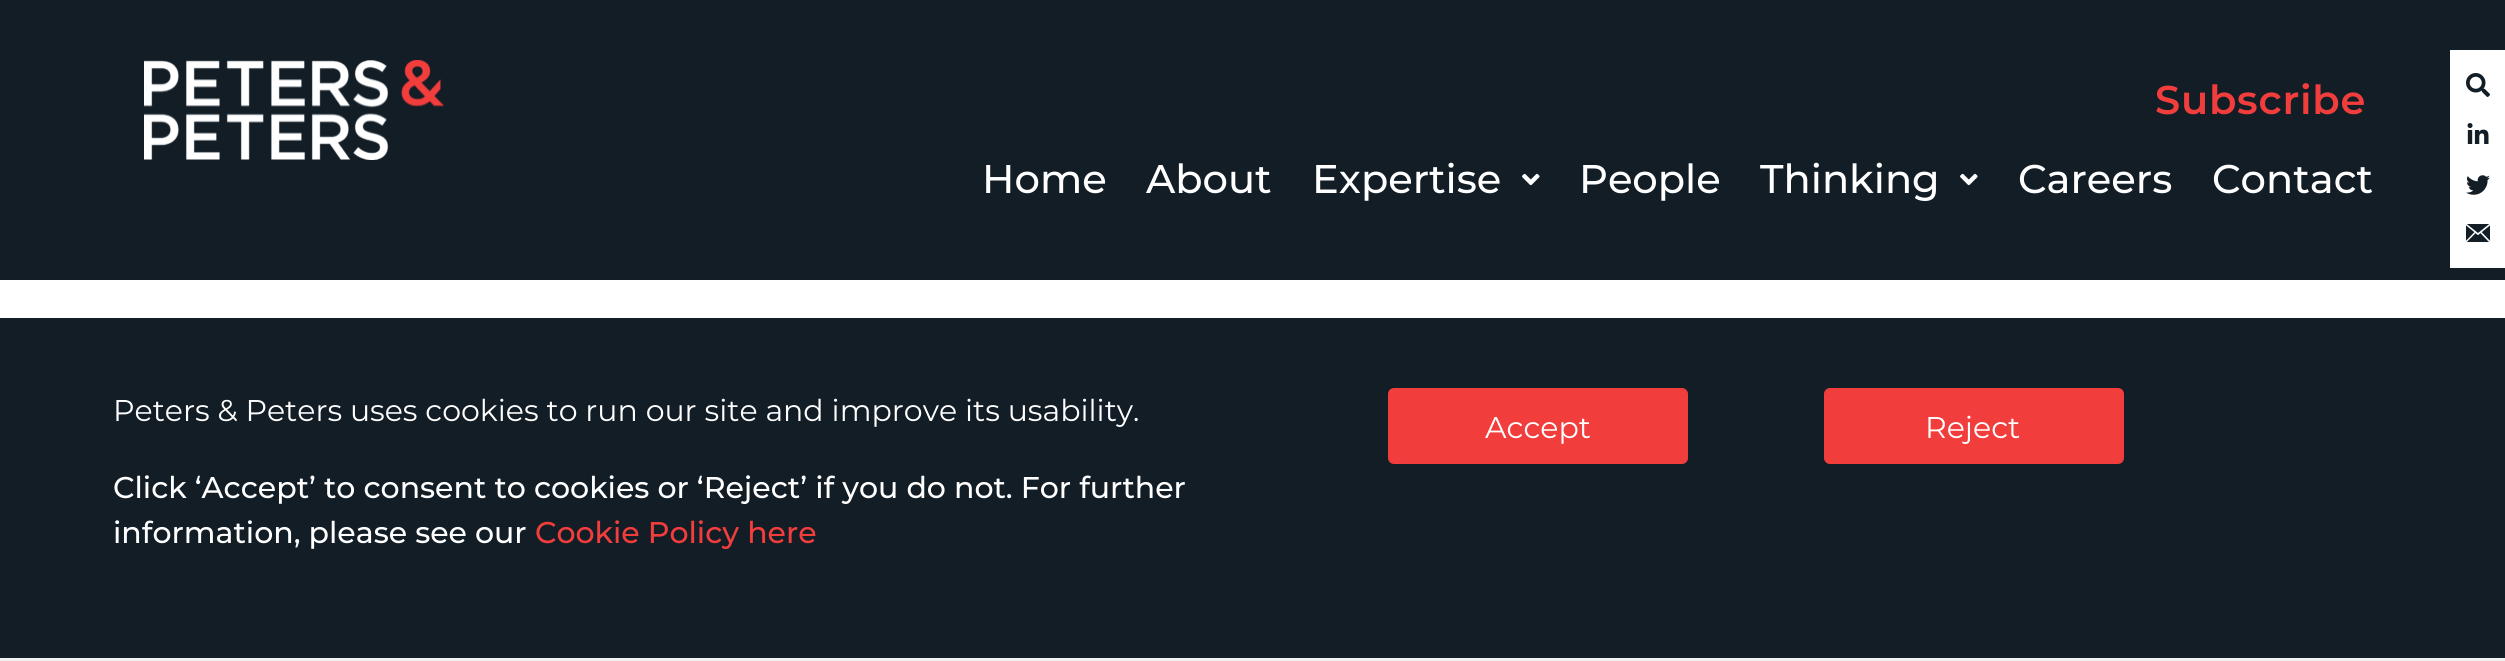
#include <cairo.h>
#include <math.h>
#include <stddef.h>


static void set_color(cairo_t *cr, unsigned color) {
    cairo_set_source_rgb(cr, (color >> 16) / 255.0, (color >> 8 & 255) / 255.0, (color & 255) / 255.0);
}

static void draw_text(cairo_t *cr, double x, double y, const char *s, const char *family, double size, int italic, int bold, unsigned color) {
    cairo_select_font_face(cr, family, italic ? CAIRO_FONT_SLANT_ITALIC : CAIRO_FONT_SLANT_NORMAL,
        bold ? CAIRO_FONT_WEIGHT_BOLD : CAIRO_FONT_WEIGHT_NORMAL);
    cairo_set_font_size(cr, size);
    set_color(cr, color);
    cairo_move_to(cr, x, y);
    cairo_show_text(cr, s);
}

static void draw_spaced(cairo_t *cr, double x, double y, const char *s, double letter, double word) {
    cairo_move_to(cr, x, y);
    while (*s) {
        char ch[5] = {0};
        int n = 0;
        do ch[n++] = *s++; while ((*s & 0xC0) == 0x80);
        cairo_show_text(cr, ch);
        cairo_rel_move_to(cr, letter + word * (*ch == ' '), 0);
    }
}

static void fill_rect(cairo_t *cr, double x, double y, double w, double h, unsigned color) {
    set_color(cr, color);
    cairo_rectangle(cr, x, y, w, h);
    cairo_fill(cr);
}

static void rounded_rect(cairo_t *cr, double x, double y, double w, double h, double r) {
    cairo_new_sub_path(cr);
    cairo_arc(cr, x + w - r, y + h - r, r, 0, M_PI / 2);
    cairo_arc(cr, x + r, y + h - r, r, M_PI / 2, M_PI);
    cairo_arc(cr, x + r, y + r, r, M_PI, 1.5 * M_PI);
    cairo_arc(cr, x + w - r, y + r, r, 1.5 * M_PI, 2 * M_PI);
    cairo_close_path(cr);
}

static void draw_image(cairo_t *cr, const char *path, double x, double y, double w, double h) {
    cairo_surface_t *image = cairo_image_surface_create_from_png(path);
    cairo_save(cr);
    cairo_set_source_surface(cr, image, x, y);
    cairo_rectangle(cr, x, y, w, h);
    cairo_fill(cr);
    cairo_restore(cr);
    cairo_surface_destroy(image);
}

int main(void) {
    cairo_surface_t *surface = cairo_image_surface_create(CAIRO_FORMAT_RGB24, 2505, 661);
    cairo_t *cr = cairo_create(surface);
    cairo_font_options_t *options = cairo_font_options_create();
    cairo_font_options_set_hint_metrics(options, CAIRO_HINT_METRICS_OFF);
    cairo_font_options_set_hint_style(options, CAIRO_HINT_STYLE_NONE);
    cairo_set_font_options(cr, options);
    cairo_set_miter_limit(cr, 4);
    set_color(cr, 0xFFFFFF);
    cairo_paint(cr);
    fill_rect(cr, 0, 0, 2505, 280, 0x121D26);
    draw_image(cr, "assets/img1.png", 144, 60, 300, 100);
    cairo_select_font_face(cr, "Montserrat SemiBold", CAIRO_FONT_SLANT_NORMAL, CAIRO_FONT_WEIGHT_NORMAL);
    cairo_set_font_size(cr, 40);
    set_color(cr, 0xF23D3D);
    draw_spaced(cr, 2155, 114, "Subscribe", 0.75, 0);
    fill_rect(cr, 2450, 50, 55, 218, 0xFFFFFF);
    draw_image(cr, "assets/img2.png", 2466, 73, 24, 24);
    draw_image(cr, "assets/img3.png", 2467, 123, 22, 21);
    draw_image(cr, "assets/img4.png", 2466, 175, 24, 20);
    draw_image(cr, "assets/img5.png", 2466, 224, 24, 18);
    draw_text(cr, 982, 193, "Home", "Montserrat Medium", 40, 0, 0, 0xFFFFFF);
    draw_text(cr, 1146, 193, "About", "Montserrat Medium", 40, 0, 0, 0xFFFFFF);
    draw_text(cr, 1312, 193, "Expertise", "Montserrat Medium", 40, 0, 0, 0xFFFFFF);
    draw_image(cr, "assets/img6.png", 1522, 173, 18, 13);
    draw_text(cr, 1579, 193, "People", "Montserrat Medium", 40, 0, 0, 0xFFFFFF);
    draw_text(cr, 1760, 193, "Thinking", "Montserrat Medium", 40, 0, 0, 0xFFFFFF);
    draw_image(cr, "assets/img6.png", 1960, 173, 18, 13);
    draw_text(cr, 2018, 193, "Careers", "Montserrat Medium", 40, 0, 0, 0xFFFFFF);
    draw_text(cr, 2212, 193, "Contact", "Montserrat Medium", 40, 0, 0, 0xFFFFFF);
    fill_rect(cr, 0, 318, 2505, 340, 0x121D26);
    fill_rect(cr, 0, 658, 2505, 3, 0xF2F0F0);
    draw_text(cr, 113, 421, "Peters & Peters uses cookies to run our site and improve its usability.", "Montserrat", 30, 0, 0, 0xFFFFFF);
    draw_text(cr, 113, 498, "Click ‘Accept’ to consent to cookies or ‘Reject’ if you do not. For further", "Montserrat Medium", 30, 0, 0, 0xFFFFFF);
    draw_text(cr, 113, 543, "information, please see our", "Montserrat Medium", 30, 0, 0, 0xFFFFFF);
    draw_text(cr, 535, 543, "Cookie Policy here", "Montserrat Medium", 30, 0, 0, 0xF23D3D);
    rounded_rect(cr, 1388, 388, 300, 76, 6);
    cairo_fill(cr);
    draw_text(cr, 1485, 438, "Accept", "Montserrat", 30, 0, 0, 0xFFFFFF);
    set_color(cr, 0xF23D3D);
    rounded_rect(cr, 1824, 388, 300, 76, 6);
    cairo_fill(cr);
    draw_text(cr, 1925, 438, "Reject", "Montserrat", 30, 0, 0, 0xFFFFFF);
    cairo_surface_write_to_png(surface, "output.png");
    cairo_font_options_destroy(options);
    cairo_destroy(cr);
    cairo_surface_destroy(surface);
    return 0;
}
